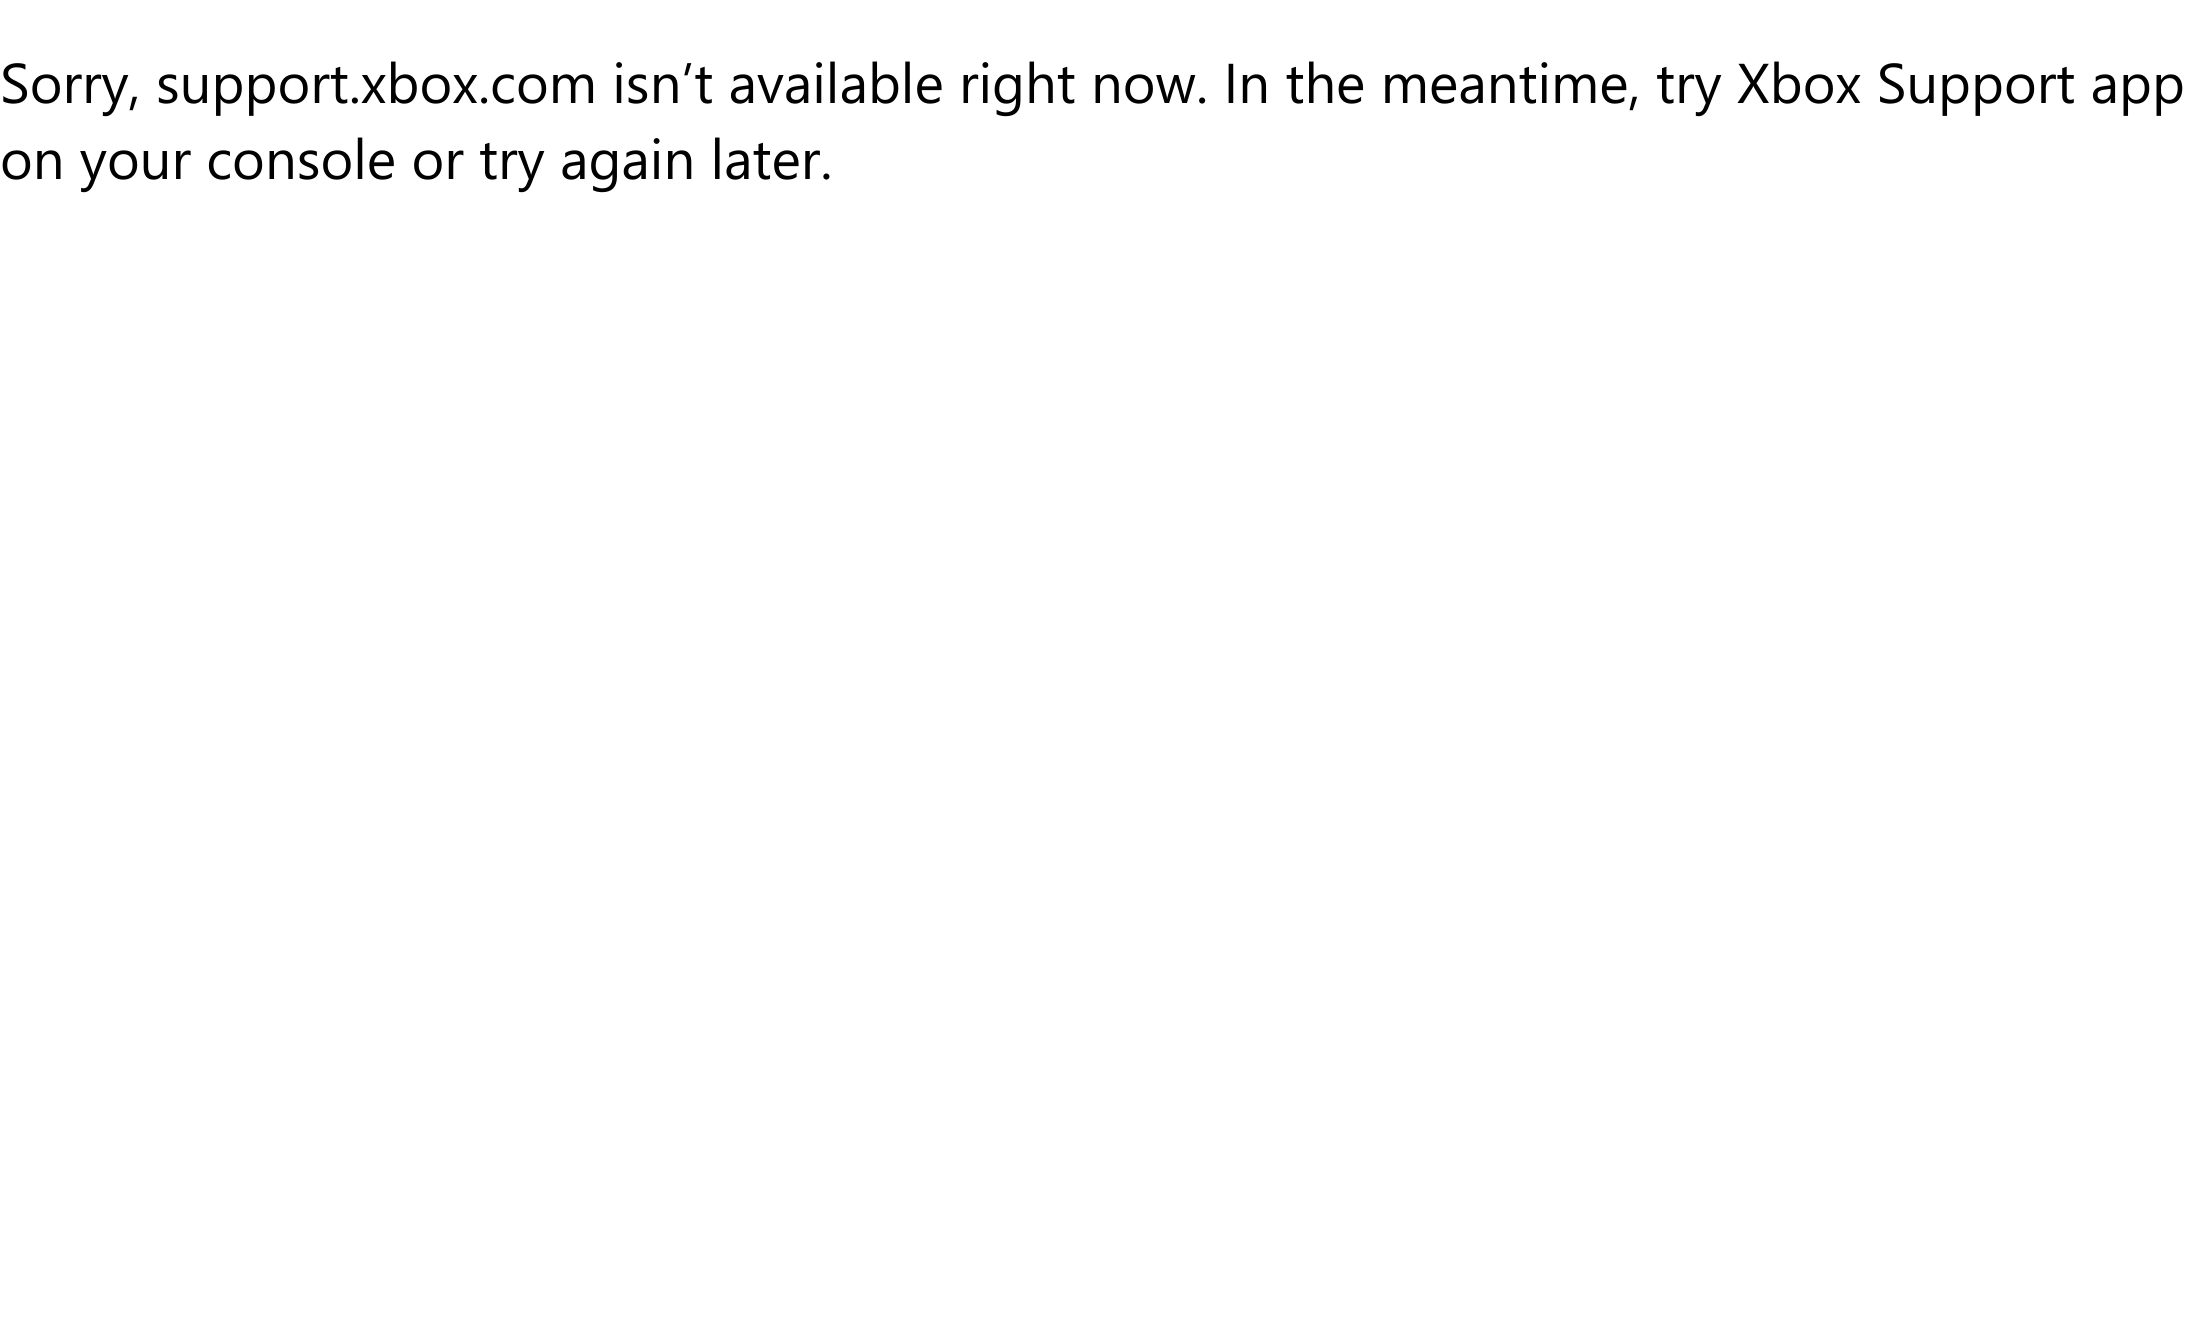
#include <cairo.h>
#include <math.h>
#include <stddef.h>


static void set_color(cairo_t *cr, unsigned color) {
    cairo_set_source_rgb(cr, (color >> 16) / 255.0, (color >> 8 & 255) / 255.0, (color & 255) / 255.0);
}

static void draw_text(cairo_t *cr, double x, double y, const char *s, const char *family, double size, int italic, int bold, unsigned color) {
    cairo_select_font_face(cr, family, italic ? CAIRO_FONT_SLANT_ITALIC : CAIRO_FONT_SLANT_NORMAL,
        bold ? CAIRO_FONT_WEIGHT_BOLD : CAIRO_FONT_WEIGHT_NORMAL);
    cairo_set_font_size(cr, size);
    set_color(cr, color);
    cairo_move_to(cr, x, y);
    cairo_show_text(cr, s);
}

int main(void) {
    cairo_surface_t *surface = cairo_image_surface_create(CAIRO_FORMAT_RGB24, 2212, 1340);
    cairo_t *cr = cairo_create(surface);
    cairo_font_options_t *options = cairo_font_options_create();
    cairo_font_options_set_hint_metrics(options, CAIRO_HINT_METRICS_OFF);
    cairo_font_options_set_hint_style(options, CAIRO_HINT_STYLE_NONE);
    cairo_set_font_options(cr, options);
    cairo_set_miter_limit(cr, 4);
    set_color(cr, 0xFFFFFF);
    cairo_paint(cr);
    draw_text(cr, 0, 103, "Sorry, support.xbox.com isn’t available right now. In the meantime, try Xbox Support app", "Segoe UI", 56, 0, 0, 0x000000);
    draw_text(cr, 0, 179, "on your console or try again later.", "Segoe UI", 56, 0, 0, 0x000000);
    cairo_surface_write_to_png(surface, "output.png");
    cairo_font_options_destroy(options);
    cairo_destroy(cr);
    cairo_surface_destroy(surface);
    return 0;
}
